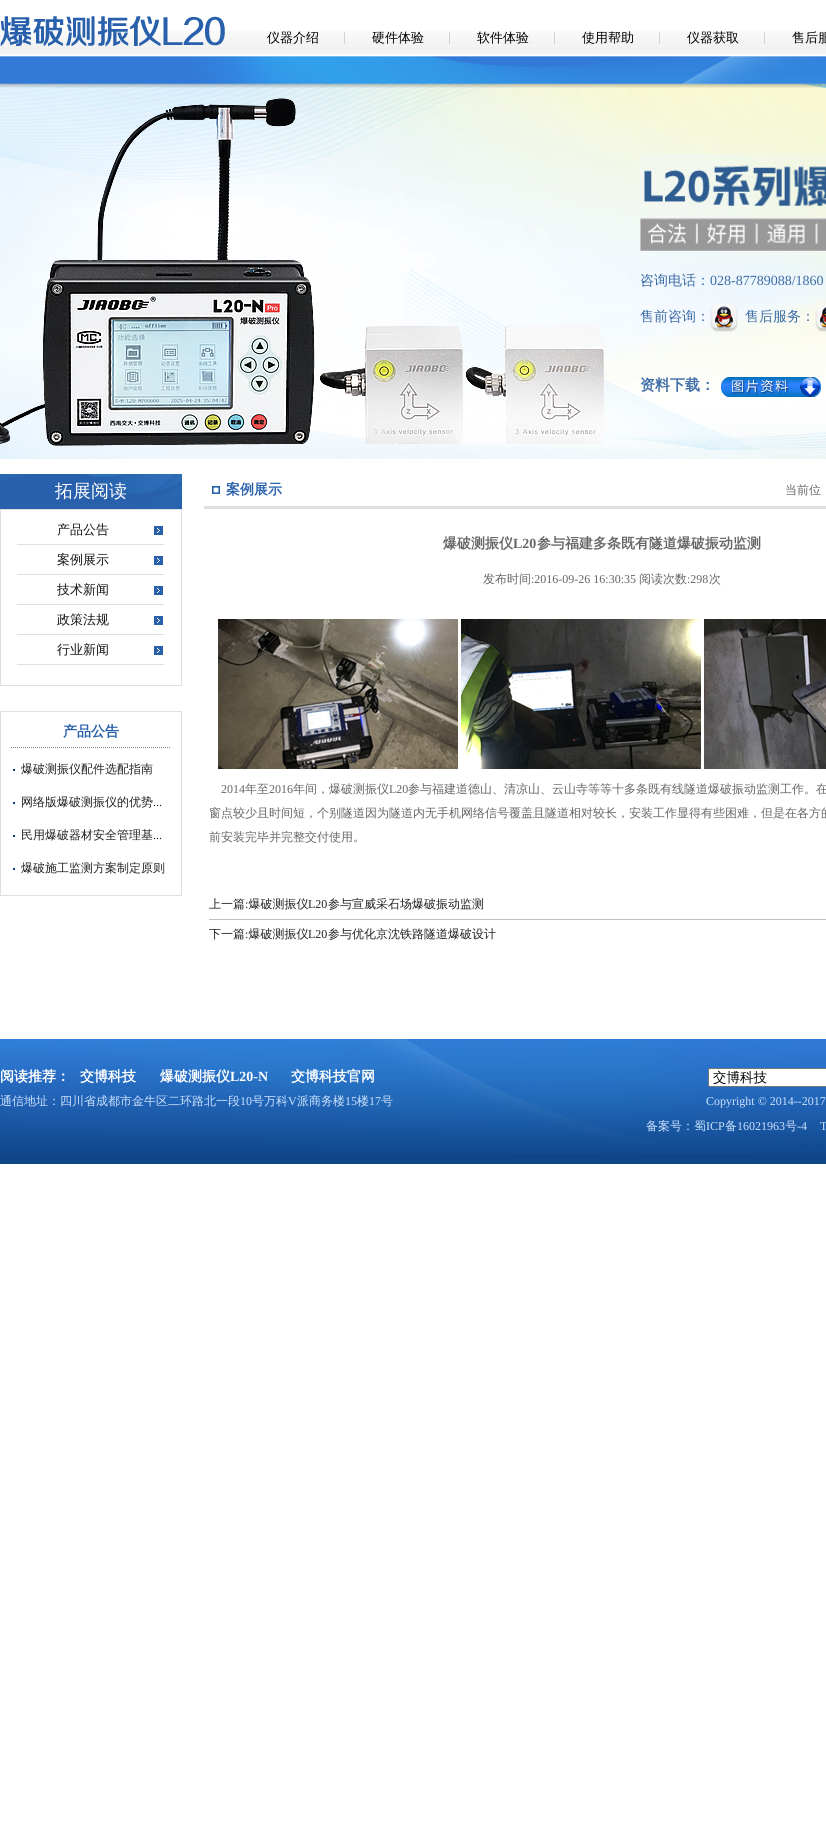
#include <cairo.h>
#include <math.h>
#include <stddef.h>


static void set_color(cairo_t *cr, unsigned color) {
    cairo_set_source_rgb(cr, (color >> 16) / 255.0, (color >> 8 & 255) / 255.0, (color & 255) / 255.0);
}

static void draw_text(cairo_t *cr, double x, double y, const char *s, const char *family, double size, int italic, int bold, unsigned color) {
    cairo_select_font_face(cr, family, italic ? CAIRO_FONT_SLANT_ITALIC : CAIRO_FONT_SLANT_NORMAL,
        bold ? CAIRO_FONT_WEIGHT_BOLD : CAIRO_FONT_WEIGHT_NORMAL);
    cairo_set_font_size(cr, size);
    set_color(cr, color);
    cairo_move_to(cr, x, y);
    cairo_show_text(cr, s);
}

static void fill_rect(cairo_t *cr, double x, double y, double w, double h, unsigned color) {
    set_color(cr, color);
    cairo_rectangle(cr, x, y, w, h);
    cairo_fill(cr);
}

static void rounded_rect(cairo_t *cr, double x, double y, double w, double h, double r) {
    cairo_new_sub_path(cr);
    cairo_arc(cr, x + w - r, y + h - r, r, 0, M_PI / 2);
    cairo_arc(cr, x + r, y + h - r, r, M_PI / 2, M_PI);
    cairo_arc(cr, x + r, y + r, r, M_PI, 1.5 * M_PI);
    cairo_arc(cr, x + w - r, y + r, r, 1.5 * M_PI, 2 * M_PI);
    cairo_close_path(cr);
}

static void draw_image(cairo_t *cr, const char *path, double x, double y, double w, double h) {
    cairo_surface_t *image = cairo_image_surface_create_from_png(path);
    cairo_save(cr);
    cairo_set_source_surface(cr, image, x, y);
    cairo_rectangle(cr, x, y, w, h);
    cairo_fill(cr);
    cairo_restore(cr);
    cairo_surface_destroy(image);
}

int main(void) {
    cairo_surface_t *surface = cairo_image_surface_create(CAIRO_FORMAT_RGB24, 826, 1825);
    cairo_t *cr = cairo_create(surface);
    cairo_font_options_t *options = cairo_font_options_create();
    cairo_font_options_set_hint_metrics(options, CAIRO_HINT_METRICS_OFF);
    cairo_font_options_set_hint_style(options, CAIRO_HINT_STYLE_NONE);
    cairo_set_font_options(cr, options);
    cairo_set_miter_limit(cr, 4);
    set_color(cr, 0xFFFFFF);
    cairo_paint(cr);
    draw_image(cr, "assets/img1.png", 0, 31, 826, 24);
    draw_image(cr, "assets/img2.png", 0, 16, 225, 31);
    fill_rect(cr, 344, 32, 1, 12, 0xD2D2D2);
    draw_text(cr, 267, 42, "仪器介绍", "WenQuanYi Zen Hei Medium", 13, 0, 0, 0x000000);
    fill_rect(cr, 449, 32, 1, 12, 0xD2D2D2);
    draw_text(cr, 372, 42, "硬件体验", "WenQuanYi Zen Hei Medium", 13, 0, 0, 0x000000);
    fill_rect(cr, 554, 32, 1, 12, 0xD2D2D2);
    draw_text(cr, 477, 42, "软件体验", "WenQuanYi Zen Hei Medium", 13, 0, 0, 0x000000);
    fill_rect(cr, 659, 32, 1, 12, 0xD2D2D2);
    draw_text(cr, 582, 42, "使用帮助", "WenQuanYi Zen Hei Medium", 13, 0, 0, 0x000000);
    fill_rect(cr, 764, 32, 1, 12, 0xD2D2D2);
    draw_text(cr, 687, 42, "仪器获取", "WenQuanYi Zen Hei Medium", 13, 0, 0, 0x000000);
    draw_text(cr, 792, 42, "售后服", "WenQuanYi Zen Hei Medium", 13, 0, 0, 0x000000);
    draw_image(cr, "assets/img4.png", 0, 84, 826, 375);
    draw_image(cr, "assets/img3.png", 0, 56, 826, 32);
    draw_image(cr, "assets/img5.png", 640, 154, 186, 97);
    draw_text(cr, 640, 285, "咨询电话：", "WenQuanYi Zen Hei Medium", 14, 0, 0, 0x3D6CA7);
    draw_text(cr, 710, 285, "028-87789088/1860", "Liberation Serif", 14, 0, 0, 0x3D6CA7);
    draw_text(cr, 640, 321, "售前咨询：", "WenQuanYi Zen Hei Medium", 14, 0, 0, 0x3D6CA7);
    draw_image(cr, "assets/img6.png", 710, 304, 28, 28);
    draw_text(cr, 745, 321, "售后服务：", "WenQuanYi Zen Hei Medium", 14, 0, 0, 0x3D6CA7);
    draw_image(cr, "assets/img7.png", 815, 304, 11, 28);
    draw_text(cr, 640, 390, "资料下载：", "WenQuanYi Zen Hei", 15, 0, 1, 0x3D6CA7);
    draw_image(cr, "assets/img8.png", 721, 377, 100, 20);
    draw_image(cr, "assets/img9.png", 0, 474, 182, 35);
    draw_text(cr, 55, 497, "拓展阅读", "WenQuanYi Zen Hei Medium", 18, 0, 0, 0xFFFFFF);
    cairo_rectangle(cr, 0.5, 509.5, 181, 176);
    set_color(cr, 0xDFDFDF);
    cairo_set_line_width(cr, 1);
    cairo_stroke(cr);
    draw_image(cr, "assets/img10.png", 17, 526, 147, 19);
    draw_text(cr, 57, 534, "产品公告", "WenQuanYi Zen Hei Medium", 13, 0, 0, 0x141414);
    draw_image(cr, "assets/img10.png", 17, 556, 147, 19);
    draw_text(cr, 57, 564, "案例展示", "WenQuanYi Zen Hei Medium", 13, 0, 0, 0x141414);
    draw_image(cr, "assets/img10.png", 17, 586, 147, 19);
    draw_text(cr, 57, 594, "技术新闻", "WenQuanYi Zen Hei Medium", 13, 0, 0, 0x141414);
    draw_image(cr, "assets/img10.png", 17, 616, 147, 19);
    draw_text(cr, 57, 624, "政策法规", "WenQuanYi Zen Hei Medium", 13, 0, 0, 0x141414);
    draw_image(cr, "assets/img10.png", 17, 646, 147, 19);
    draw_text(cr, 57, 654, "行业新闻", "WenQuanYi Zen Hei Medium", 13, 0, 0, 0x141414);
    cairo_rectangle(cr, 0.5, 711.5, 181, 184);
    set_color(cr, 0xDFDFDF);
    cairo_stroke(cr);
    cairo_new_path(cr);
    cairo_move_to(cr, 11, 747.5);
    cairo_line_to(cr, 171, 747.5);
    set_color(cr, 0x848383);
    cairo_set_dash(cr, (double[]){1, 1}, 2, 0);
    cairo_stroke(cr);
    draw_text(cr, 63, 736, "产品公告", "WenQuanYi Zen Hei", 14, 0, 1, 0x2860AB);
    fill_rect(cr, 13, 769, 2, 2, 0x0B4189);
    draw_text(cr, 21, 773, "爆破测振仪配件选配指南", "WenQuanYi Zen Hei Medium", 12, 0, 0, 0x212122);
    fill_rect(cr, 13, 802, 2, 2, 0x0B4189);
    draw_text(cr, 21, 806, "网络版爆破测振仪的优势", "WenQuanYi Zen Hei Medium", 12, 0, 0, 0x212122);
    draw_text(cr, 153, 806, "...", "Liberation Serif", 12, 0, 0, 0x212122);
    fill_rect(cr, 13, 835, 2, 2, 0x0B4189);
    draw_text(cr, 21, 839, "民用爆破器材安全管理基", "WenQuanYi Zen Hei Medium", 12, 0, 0, 0x212122);
    draw_text(cr, 153, 839, "...", "Liberation Serif", 12, 0, 0, 0x212122);
    fill_rect(cr, 13, 868, 2, 2, 0x0B4189);
    draw_text(cr, 21, 872, "爆破施工监测方案制定原则", "WenQuanYi Zen Hei Medium", 12, 0, 0, 0x212122);
    draw_image(cr, "assets/img11.png", 212, 486, 8, 8);
    fill_rect(cr, 204, 506, 622, 3, 0xDFDFDF);
    draw_text(cr, 226, 494, "案例展示", "WenQuanYi Zen Hei", 14, 0, 1, 0x2860AB);
    draw_text(cr, 785, 494, "当前位", "WenQuanYi Zen Hei Medium", 12, 0, 0, 0x666666);
    draw_text(cr, 443, 548, "爆破测振仪", "WenQuanYi Zen Hei", 14, 0, 1, 0x666666);
    draw_text(cr, 513, 548, "L20", "Liberation Serif", 14, 0, 1, 0x666666);
    draw_text(cr, 537, 548, "参与福建多条既有隧道爆破振动监测", "WenQuanYi Zen Hei", 14, 0, 1, 0x666666);
    draw_text(cr, 483, 583, "发布时间", "WenQuanYi Zen Hei Medium", 12, 0, 0, 0x666666);
    draw_text(cr, 531, 583, ":2016-09-26 16:30:35", "Liberation Serif", 12, 0, 0, 0x666666);
    draw_text(cr, 639, 583, "阅读次数", "WenQuanYi Zen Hei Medium", 12, 0, 0, 0x666666);
    draw_text(cr, 687, 583, ":298", "Liberation Serif", 12, 0, 0, 0x666666);
    draw_text(cr, 709, 583, "次", "WenQuanYi Zen Hei Medium", 12, 0, 0, 0x666666);
    draw_image(cr, "assets/img12.png", 218, 619, 240, 150);
    draw_image(cr, "assets/img13.png", 461, 619, 240, 150);
    draw_image(cr, "assets/img14.png", 704, 619, 122, 150);
    draw_text(cr, 221, 793, "2014", "Liberation Serif", 12, 0, 0, 0x666666);
    draw_text(cr, 245, 793, "年至", "WenQuanYi Zen Hei Medium", 12, 0, 0, 0x666666);
    draw_text(cr, 269, 793, "2016", "Liberation Serif", 12, 0, 0, 0x666666);
    draw_text(cr, 293, 793, "年间，爆破测振仪", "WenQuanYi Zen Hei Medium", 12, 0, 0, 0x666666);
    draw_text(cr, 389, 793, "L20", "Liberation Serif", 12, 0, 0, 0x666666);
    draw_text(cr, 408, 793, "参与福建道德山、清凉山、云山寺等等十多条既有线隧道爆破振动监测工作。在", "WenQuanYi Zen Hei Medium", 12, 0, 0, 0x666666);
    draw_text(cr, 209, 817, "窗点较少且时间短，个别隧道因为隧道内无手机网络信号覆盖且隧道相对较长，安装工作显得有些困难，但是在各方的", "WenQuanYi Zen Hei Medium", 12, 0, 0, 0x666666);
    draw_text(cr, 209, 841, "前安装完毕并完整交付使用。", "WenQuanYi Zen Hei Medium", 12, 0, 0, 0x666666);
    fill_rect(cr, 209, 919, 617, 1, 0xBFBFBF);
    draw_text(cr, 209, 908, "上一篇 爆破测振仪", "WenQuanYi Zen Hei Medium", 12, 0, 0, 0x212122);
    draw_text(cr, 308, 908, "L20", "Liberation Serif", 12, 0, 0, 0x212122);
    draw_text(cr, 328, 908, "参与宣威采石场爆破振动监测", "WenQuanYi Zen Hei Medium", 12, 0, 0, 0x212122);
    draw_text(cr, 245, 908, ":", "Liberation Serif", 12, 0, 0, 0x212122);
    draw_text(cr, 209, 938, "下一篇 爆破测振仪", "WenQuanYi Zen Hei Medium", 12, 0, 0, 0x212122);
    draw_text(cr, 308, 938, "L20", "Liberation Serif", 12, 0, 0, 0x212122);
    draw_text(cr, 328, 938, "参与优化京沈铁路隧道爆破设计", "WenQuanYi Zen Hei Medium", 12, 0, 0, 0x212122);
    draw_text(cr, 245, 938, ":", "Liberation Serif", 12, 0, 0, 0x212122);
    fill_rect(cr, 0, 1154, 826, 10, 0x114589);
    draw_image(cr, "assets/img15.png", 0, 1039, 826, 115);
    draw_text(cr, 0, 1081, "阅读推荐：", "WenQuanYi Zen Hei", 14, 0, 1, 0xFFFFFF);
    draw_text(cr, 80, 1081, "交博科技", "WenQuanYi Zen Hei", 14, 0, 1, 0xFFFFFF);
    draw_text(cr, 160, 1081, "爆破测振仪", "WenQuanYi Zen Hei", 14, 0, 1, 0xFFFFFF);
    draw_text(cr, 230, 1081, "L20-N", "Liberation Serif", 14, 0, 1, 0xFFFFFF);
    draw_text(cr, 291, 1081, "交博科技官网", "WenQuanYi Zen Hei", 14, 0, 1, 0xFFFFFF);
    draw_text(cr, 0, 1105, "通信地址：四川省成都市金牛区二环路北一段", "WenQuanYi Zen Hei Medium", 12, 0, 0, 0xCCE2FF);
    draw_text(cr, 240, 1105, "10", "Liberation Serif", 12, 0, 0, 0xCCE2FF);
    draw_text(cr, 252, 1105, "号万科", "WenQuanYi Zen Hei Medium", 12, 0, 0, 0xCCE2FF);
    draw_text(cr, 288, 1105, "V", "Liberation Serif", 12, 0, 0, 0xCCE2FF);
    draw_text(cr, 297, 1105, "派商务楼", "WenQuanYi Zen Hei Medium", 12, 0, 0, 0xCCE2FF);
    draw_text(cr, 345, 1105, "15", "Liberation Serif", 12, 0, 0, 0xCCE2FF);
    draw_text(cr, 357, 1105, "楼", "WenQuanYi Zen Hei Medium", 12, 0, 0, 0xCCE2FF);
    draw_text(cr, 369, 1105, "17", "Liberation Serif", 12, 0, 0, 0xCCE2FF);
    draw_text(cr, 381, 1105, "号", "WenQuanYi Zen Hei Medium", 12, 0, 0, 0xCCE2FF);
    set_color(cr, 0xFFFFFF);
    rounded_rect(cr, 708.5, 1068.5, 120, 18, 1.5);
    cairo_fill_preserve(cr);
    set_color(cr, 0x767676);
    cairo_set_dash(cr, NULL, 0, 0);
    cairo_stroke(cr);
    draw_text(cr, 713, 1082, "交博科技", "WenQuanYi Zen Hei Medium", 13.5, 0, 0, 0x000000);
    draw_text(cr, 706, 1105, "Copyright © 2014--2017", "Liberation Serif", 12, 0, 0, 0xCCE2FF);
    draw_text(cr, 646, 1130, "备案号：蜀", "WenQuanYi Zen Hei Medium", 12, 0, 0, 0xCCE2FF);
    draw_text(cr, 706, 1130, "ICP", "Liberation Serif", 12, 0, 0, 0xCCE2FF);
    draw_text(cr, 725, 1130, "备", "WenQuanYi Zen Hei Medium", 12, 0, 0, 0xCCE2FF);
    draw_text(cr, 737, 1130, "16021963", "Liberation Serif", 12, 0, 0, 0xCCE2FF);
    draw_text(cr, 785, 1130, "号", "WenQuanYi Zen Hei Medium", 12, 0, 0, 0xCCE2FF);
    draw_text(cr, 797, 1130, "-4", "Liberation Serif", 12, 0, 0, 0xCCE2FF);
    draw_text(cr, 820, 1130, "T", "Liberation Serif", 12, 0, 0, 0xCCE2FF);
    cairo_surface_write_to_png(surface, "output.png");
    cairo_font_options_destroy(options);
    cairo_destroy(cr);
    cairo_surface_destroy(surface);
    return 0;
}
